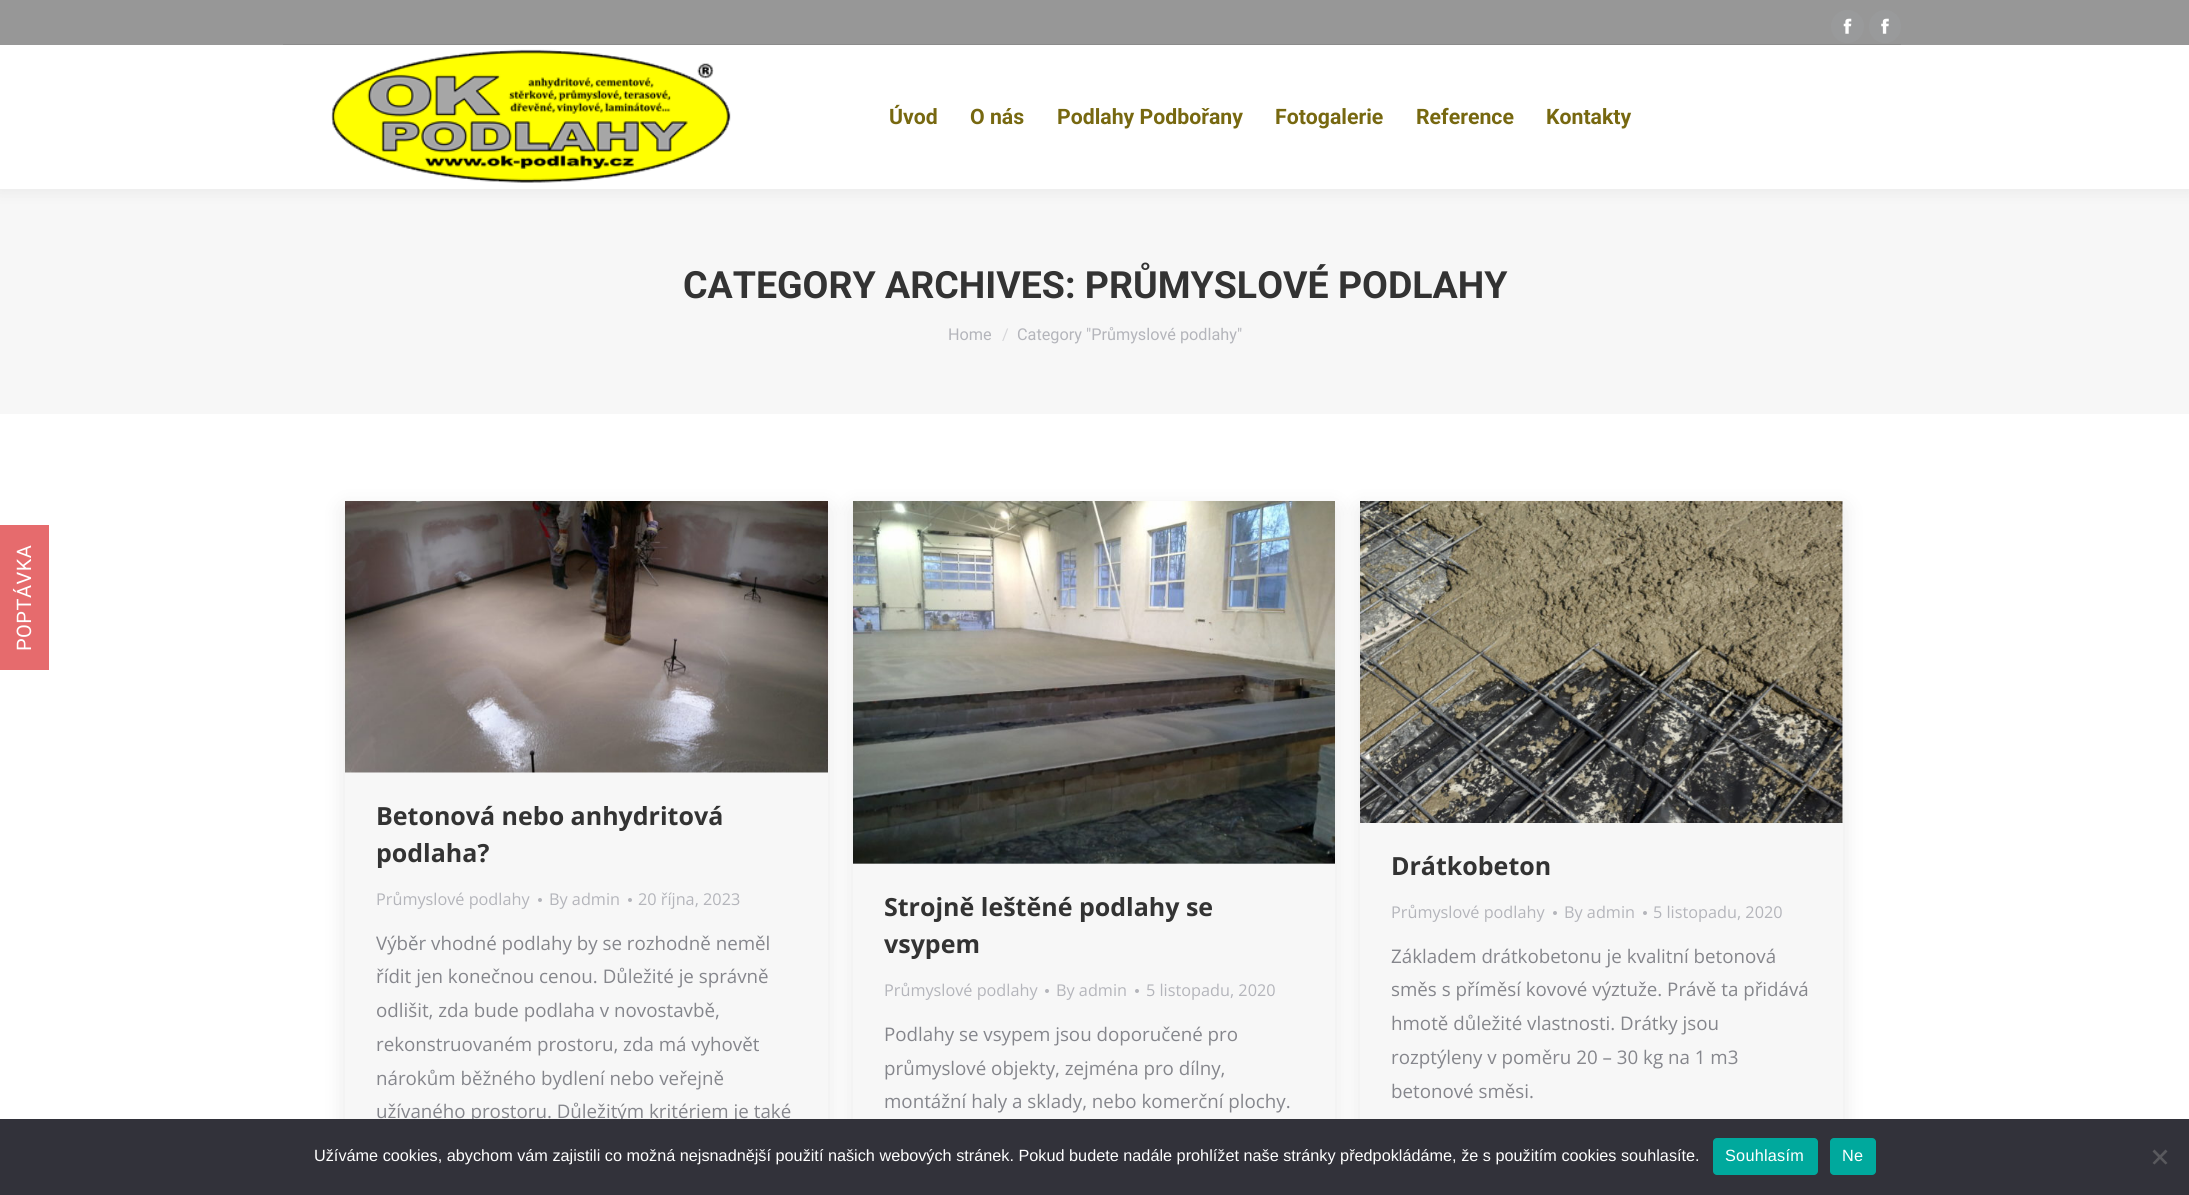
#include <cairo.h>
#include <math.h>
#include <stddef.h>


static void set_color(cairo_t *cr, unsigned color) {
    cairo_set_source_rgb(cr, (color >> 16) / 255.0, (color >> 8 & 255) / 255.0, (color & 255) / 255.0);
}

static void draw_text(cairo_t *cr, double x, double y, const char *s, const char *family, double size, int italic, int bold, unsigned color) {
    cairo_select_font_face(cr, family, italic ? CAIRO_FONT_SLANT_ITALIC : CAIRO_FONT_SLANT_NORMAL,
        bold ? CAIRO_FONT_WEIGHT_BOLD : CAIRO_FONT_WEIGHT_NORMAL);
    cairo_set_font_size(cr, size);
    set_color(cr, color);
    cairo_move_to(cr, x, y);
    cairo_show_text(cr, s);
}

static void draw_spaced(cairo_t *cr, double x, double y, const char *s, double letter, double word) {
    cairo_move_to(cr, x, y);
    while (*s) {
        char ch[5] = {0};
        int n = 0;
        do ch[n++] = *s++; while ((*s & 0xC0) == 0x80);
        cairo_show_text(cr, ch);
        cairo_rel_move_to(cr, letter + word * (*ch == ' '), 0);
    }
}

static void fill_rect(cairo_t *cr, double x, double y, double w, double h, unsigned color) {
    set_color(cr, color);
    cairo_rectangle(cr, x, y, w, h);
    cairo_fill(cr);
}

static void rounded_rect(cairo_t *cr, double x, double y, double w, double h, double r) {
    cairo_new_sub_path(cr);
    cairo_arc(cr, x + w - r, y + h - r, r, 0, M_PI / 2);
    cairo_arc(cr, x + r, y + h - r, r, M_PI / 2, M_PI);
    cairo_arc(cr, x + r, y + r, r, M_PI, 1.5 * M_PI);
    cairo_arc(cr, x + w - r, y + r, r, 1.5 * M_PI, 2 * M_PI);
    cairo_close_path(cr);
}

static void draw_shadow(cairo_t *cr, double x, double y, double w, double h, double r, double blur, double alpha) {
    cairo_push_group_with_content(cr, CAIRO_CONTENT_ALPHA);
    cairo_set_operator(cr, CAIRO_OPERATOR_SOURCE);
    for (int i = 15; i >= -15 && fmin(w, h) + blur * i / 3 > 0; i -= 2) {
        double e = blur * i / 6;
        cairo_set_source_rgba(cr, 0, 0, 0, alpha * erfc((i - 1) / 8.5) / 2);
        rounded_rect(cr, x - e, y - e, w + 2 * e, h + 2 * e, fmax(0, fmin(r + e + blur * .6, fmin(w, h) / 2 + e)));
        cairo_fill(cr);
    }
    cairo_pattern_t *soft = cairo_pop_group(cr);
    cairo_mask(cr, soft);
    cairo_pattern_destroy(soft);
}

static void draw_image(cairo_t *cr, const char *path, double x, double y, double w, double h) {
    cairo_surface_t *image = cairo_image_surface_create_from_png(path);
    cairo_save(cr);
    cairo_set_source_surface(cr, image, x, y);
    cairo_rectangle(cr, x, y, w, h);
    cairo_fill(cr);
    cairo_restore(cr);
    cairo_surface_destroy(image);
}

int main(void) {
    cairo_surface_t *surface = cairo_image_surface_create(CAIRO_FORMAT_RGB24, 2189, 1195);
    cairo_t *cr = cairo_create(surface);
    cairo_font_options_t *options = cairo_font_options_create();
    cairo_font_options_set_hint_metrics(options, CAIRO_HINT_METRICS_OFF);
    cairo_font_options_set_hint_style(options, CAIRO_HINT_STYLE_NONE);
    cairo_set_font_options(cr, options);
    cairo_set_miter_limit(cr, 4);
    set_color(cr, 0xFFFFFF);
    cairo_paint(cr);
    fill_rect(cr, 0, 525, 49, 145, 0xE66B6D);
    cairo_select_font_face(cr, "Roboto", CAIRO_FONT_SLANT_NORMAL, CAIRO_FONT_WEIGHT_NORMAL);
    cairo_set_font_size(cr, 20);
    set_color(cr, 0xFFFFFF);
    cairo_save(cr);
    cairo_translate(cr, 31, 651);
    cairo_rotate(cr, -90 * M_PI / 180);
    draw_spaced(cr, 0, 0, "POPTÁVKA", 0.5, 0);
    cairo_restore(cr);
    fill_rect(cr, 0, 189, 2189, 225, 0xF7F7F7);
    set_color(cr, 0x000000);
    draw_shadow(cr, -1, -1, 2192, 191, 0, 9.5, 0.07);
    fill_rect(cr, 0, 45, 2189, 144, 0xFFFFFF);
    fill_rect(cr, 0, 0, 2189, 45, 0x979797);
    set_color(cr, 0x999A9B);
    cairo_arc(cr, 1847.5, 26.5, 16.5, 0, 2 * M_PI);
    cairo_fill(cr);
    draw_image(cr, "assets/img1.png", 1843, 18, 9, 16);
    rounded_rect(cr, 1869, 10, 32, 33, 16);
    cairo_fill(cr);
    draw_image(cr, "assets/img2.png", 1881, 18, 8, 16);
    fill_rect(cr, 283, 44, 1618, 1, 0x8B8B8B);
    draw_image(cr, "assets/img3.png", 331, 49, 400, 134);
    draw_text(cr, 889, 124, "Úvod", "Roboto", 21.25, 0, 1, 0x776810);
    draw_text(cr, 970, 124, "O nás", "Roboto", 21.25, 0, 1, 0x776810);
    draw_text(cr, 1057, 124, "Podlahy Podbořany", "Roboto", 21.25, 0, 1, 0x776810);
    draw_text(cr, 1275, 124, "Fotogalerie", "Roboto", 21.25, 0, 1, 0x776810);
    draw_text(cr, 1416, 124, "Reference", "Roboto", 21.25, 0, 1, 0x776810);
    draw_text(cr, 1546, 124, "Kontakty", "Roboto", 21.25, 0, 1, 0x776810);
    draw_text(cr, 683, 298, "CATEGORY ARCHIVES: PRŮMYSLOVÉ PODLAHY", "Roboto", 37.5, 0, 1, 0x333333);
    draw_text(cr, 948, 340, "Home", "Roboto", 16.25, 0, 0, 0xB4B5BB);
    draw_text(cr, 1002, 340, "/", "Roboto", 16.25, 0, 0, 0xD6D6D9);
    draw_text(cr, 1017, 340, "Category \"Průmyslové podlahy\"", "Roboto", 16.25, 0, 0, 0xB4B5BB);
    set_color(cr, 0x000000);
    draw_shadow(cr, 345, 509, 483, 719, 0, 11, 0.1);
    fill_rect(cr, 345, 772, 483, 347, 0xF7F7F7);
    draw_image(cr, "assets/img4.png", 345, 501, 483, 272);
    draw_text(cr, 376, 825, "Betonová nebo anhydritová", "Open Sans", 25, 0, 1, 0x333333);
    draw_text(cr, 376, 862, "podlaha?", "Open Sans", 25, 0, 1, 0x333333);
    draw_text(cr, 376, 905, "Průmyslové podlahy", "Open Sans", 16.25, 0, 0, 0xB4B5BB);
    cairo_new_path(cr);
    cairo_arc(cr, 540, 900, 2, 0, 2 * M_PI);
    cairo_fill(cr);
    draw_text(cr, 549, 905, "By admin", "Open Sans", 16.25, 0, 0, 0xB4B5BB);
    cairo_new_path(cr);
    cairo_arc(cr, 630, 900, 2, 0, 2 * M_PI);
    cairo_fill(cr);
    draw_text(cr, 638, 905, "20 října, 2023", "Open Sans", 16.25, 0, 0, 0xB4B5BB);
    draw_text(cr, 376, 950, "Výběr vhodné podlahy by se rozhodně neměl", "Open Sans", 18.75, 0, 0, 0x85868C);
    draw_text(cr, 376, 983, "řídit jen konečnou cenou. Důležité je správně", "Open Sans", 18.75, 0, 0, 0x85868C);
    draw_text(cr, 376, 1017, "odlišit, zda bude podlaha v novostavbě,", "Open Sans", 18.75, 0, 0, 0x85868C);
    draw_text(cr, 376, 1051, "rekonstruovaném prostoru, zda má vyhovět", "Open Sans", 18.75, 0, 0, 0x85868C);
    draw_text(cr, 376, 1085, "nárokům běžného bydlení nebo veřejně", "Open Sans", 18.75, 0, 0, 0x85868C);
    draw_text(cr, 376, 1118, "užívaného prostoru. Důležitým kritériem je také", "Open Sans", 18.75, 0, 0, 0x85868C);
    set_color(cr, 0x000000);
    draw_shadow(cr, 853, 509, 482, 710, 0, 11, 0.1);
    fill_rect(cr, 853, 863, 482, 256, 0xF7F7F7);
    draw_image(cr, "assets/img5.png", 853, 501, 482, 363);
    draw_text(cr, 884, 916, "Strojně leštěné podlahy se", "Open Sans", 25, 0, 1, 0x333333);
    draw_text(cr, 884, 953, "vsypem", "Open Sans", 25, 0, 1, 0x333333);
    draw_text(cr, 884, 996, "Průmyslové podlahy", "Open Sans", 16.25, 0, 0, 0xB4B5BB);
    cairo_new_path(cr);
    cairo_arc(cr, 1047, 991, 2, 0, 2 * M_PI);
    cairo_fill(cr);
    draw_text(cr, 1056, 996, "By admin", "Open Sans", 16.25, 0, 0, 0xB4B5BB);
    cairo_new_path(cr);
    cairo_arc(cr, 1137, 991, 2, 0, 2 * M_PI);
    cairo_fill(cr);
    draw_text(cr, 1146, 996, "5 listopadu, 2020", "Open Sans", 16.25, 0, 0, 0xB4B5BB);
    draw_text(cr, 884, 1041, "Podlahy se vsypem jsou doporučené pro", "Open Sans", 18.75, 0, 0, 0x85868C);
    draw_text(cr, 884, 1075, "průmyslové objekty, zejména pro dílny,", "Open Sans", 18.75, 0, 0, 0x85868C);
    draw_text(cr, 884, 1108, "montážní haly a sklady, nebo komerční plochy.", "Open Sans", 18.75, 0, 0, 0x85868C);
    set_color(cr, 0x000000);
    draw_shadow(cr, 1360, 509, 483, 631, 0, 11, 0.1);
    fill_rect(cr, 1360, 501, 483, 618, 0xF7F7F7);
    draw_image(cr, "assets/img6.png", 1360, 501, 483, 322);
    draw_text(cr, 1391, 875, "Drátkobeton", "Open Sans", 25, 0, 1, 0x333333);
    draw_text(cr, 1391, 918, "Průmyslové podlahy", "Open Sans", 16.25, 0, 0, 0xB4B5BB);
    cairo_new_path(cr);
    cairo_arc(cr, 1555, 913, 2, 0, 2 * M_PI);
    cairo_fill(cr);
    draw_text(cr, 1564, 918, "By admin", "Open Sans", 16.25, 0, 0, 0xB4B5BB);
    cairo_new_path(cr);
    cairo_arc(cr, 1645, 913, 2, 0, 2 * M_PI);
    cairo_fill(cr);
    draw_text(cr, 1653, 918, "5 listopadu, 2020", "Open Sans", 16.25, 0, 0, 0xB4B5BB);
    draw_text(cr, 1391, 963, "Základem drátkobetonu je kvalitní betonová", "Open Sans", 18.75, 0, 0, 0x85868C);
    draw_text(cr, 1391, 996, "směs s příměsí kovové výztuže. Právě ta přidává", "Open Sans", 18.75, 0, 0, 0x85868C);
    draw_text(cr, 1391, 1030, "hmotě důležité vlastnosti. Drátky jsou", "Open Sans", 18.75, 0, 0, 0x85868C);
    draw_text(cr, 1391, 1064, "rozptýleny v poměru 20 – 30 kg na 1 m3", "Open Sans", 18.75, 0, 0, 0x85868C);
    draw_text(cr, 1391, 1098, "betonové směsi.", "Open Sans", 18.75, 0, 0, 0x85868C);
    fill_rect(cr, 0, 1119, 2189, 76, 0x32323A);
    draw_text(cr, 314, 1161, "Užíváme cookies, abychom vám zajistili co možná nejsnadnější použití našich webových stránek. Pokud budete nadále prohlížet naše stránky předpokládáme, že s použitím cookies souhlasíte.", "Liberation Sans", 16.25, 0, 0, 0xFFFFFF);
    set_color(cr, 0x00A99D);
    rounded_rect(cr, 1713, 1138, 105, 37, 4);
    cairo_fill(cr);
    set_color(cr, 0xFFFFFF);
    draw_spaced(cr, 1725, 1161, "Souhlasím", 0.25, 0);
    set_color(cr, 0x00A99D);
    rounded_rect(cr, 1830, 1138, 46, 37, 4);
    cairo_fill(cr);
    set_color(cr, 0xFFFFFF);
    draw_spaced(cr, 1842, 1161, "Ne", 0.25, 0);
    set_color(cr, 0x59595D);
    cairo_new_path(cr);
    cairo_move_to(cr, 2165.5, 1149.5);
    cairo_line_to(cr, 2167.5, 1151.5);
    cairo_line_to(cr, 2154.5, 1164.5);
    cairo_line_to(cr, 2152.5, 1163);
    cairo_close_path(cr);
    cairo_fill(cr);
    cairo_new_path(cr);
    cairo_move_to(cr, 2152.5, 1151.5);
    cairo_line_to(cr, 2154.5, 1149.5);
    cairo_line_to(cr, 2167.5, 1163);
    cairo_line_to(cr, 2165.5, 1164.5);
    cairo_close_path(cr);
    cairo_fill(cr);
    cairo_surface_write_to_png(surface, "output.png");
    cairo_font_options_destroy(options);
    cairo_destroy(cr);
    cairo_surface_destroy(surface);
    return 0;
}
